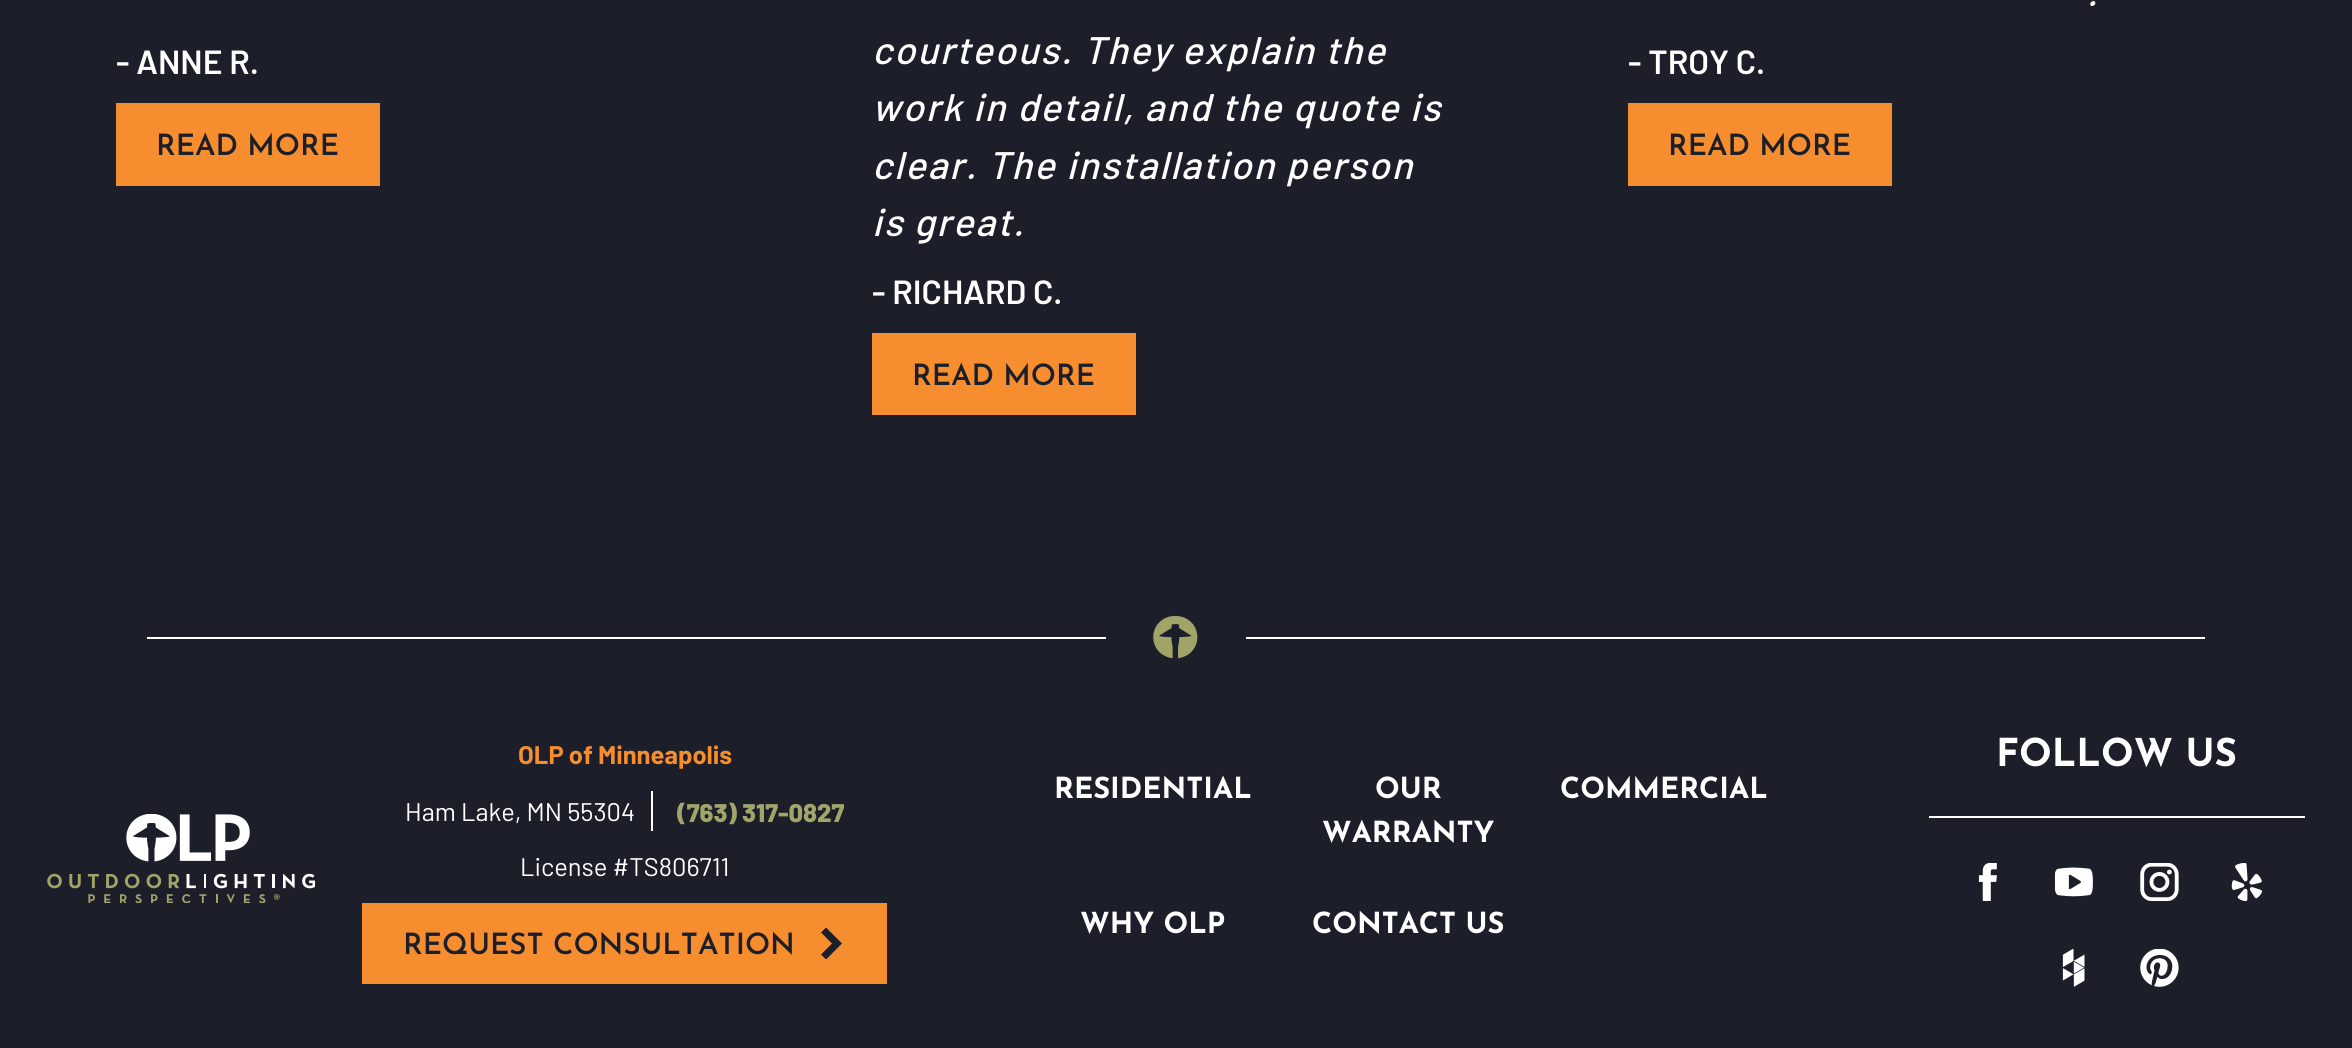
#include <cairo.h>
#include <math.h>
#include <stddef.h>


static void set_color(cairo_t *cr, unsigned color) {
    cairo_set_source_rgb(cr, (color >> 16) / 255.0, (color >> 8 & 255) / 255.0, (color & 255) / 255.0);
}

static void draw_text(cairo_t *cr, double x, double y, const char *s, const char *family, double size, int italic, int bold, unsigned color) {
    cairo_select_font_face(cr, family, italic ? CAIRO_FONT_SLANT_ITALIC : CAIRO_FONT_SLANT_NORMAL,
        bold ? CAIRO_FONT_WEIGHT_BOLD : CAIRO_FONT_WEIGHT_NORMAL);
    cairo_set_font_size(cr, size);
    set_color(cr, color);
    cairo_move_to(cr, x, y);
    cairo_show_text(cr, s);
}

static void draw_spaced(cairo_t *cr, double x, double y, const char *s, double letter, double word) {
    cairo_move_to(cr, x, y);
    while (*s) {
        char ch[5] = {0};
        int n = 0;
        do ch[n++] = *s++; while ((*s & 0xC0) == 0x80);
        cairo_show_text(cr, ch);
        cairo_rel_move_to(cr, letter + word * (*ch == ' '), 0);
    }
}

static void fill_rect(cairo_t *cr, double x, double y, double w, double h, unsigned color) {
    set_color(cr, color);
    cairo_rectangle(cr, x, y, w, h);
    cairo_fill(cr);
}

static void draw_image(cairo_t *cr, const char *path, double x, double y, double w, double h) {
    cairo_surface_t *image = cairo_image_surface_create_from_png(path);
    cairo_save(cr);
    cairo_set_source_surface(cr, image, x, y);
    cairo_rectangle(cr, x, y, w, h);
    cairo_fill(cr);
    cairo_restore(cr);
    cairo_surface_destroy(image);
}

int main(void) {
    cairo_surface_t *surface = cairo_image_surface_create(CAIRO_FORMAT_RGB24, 2352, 1048);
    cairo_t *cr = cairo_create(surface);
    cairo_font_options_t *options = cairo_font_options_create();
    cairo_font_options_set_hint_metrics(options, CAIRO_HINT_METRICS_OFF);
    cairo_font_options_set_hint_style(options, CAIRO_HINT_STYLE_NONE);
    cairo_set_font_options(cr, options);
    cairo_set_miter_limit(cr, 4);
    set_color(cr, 0x1C1F2A);
    cairo_paint(cr);
    draw_text(cr, 116, 74, "- ANNE R.", "Barlow SemiBold", 33.5, 0, 0, 0xFFFFFF);
    fill_rect(cr, 116, 103, 264, 83, 0xF68D2E);
    draw_text(cr, 156, 155, "READ MORE", "Josefin Sans SemiBold", 29.4, 0, 0, 0x1C1F2A);
    cairo_select_font_face(cr, "Barlow Medium", CAIRO_FONT_SLANT_ITALIC, CAIRO_FONT_WEIGHT_NORMAL);
    cairo_set_font_size(cr, 38.4);
    set_color(cr, 0xFFFFFF);
    draw_spaced(cr, 872, 64, "courteous. They explain the", 1.9, 0);
    draw_spaced(cr, 872, 121, "work in detail, and the quote is", 1.9, 0);
    draw_spaced(cr, 872, 179, "clear. The installation person", 1.9, 0);
    draw_spaced(cr, 872, 236, "is great.", 1.9, 0);
    draw_text(cr, 872, 304, "- RICHARD C.", "Barlow SemiBold", 33.5, 0, 0, 0xFFFFFF);
    fill_rect(cr, 872, 333, 264, 82, 0xF68D2E);
    draw_text(cr, 912, 385, "READ MORE", "Josefin Sans SemiBold", 29.4, 0, 0, 0x1C1F2A);
    cairo_select_font_face(cr, "Barlow Medium", CAIRO_FONT_SLANT_ITALIC, CAIRO_FONT_WEIGHT_NORMAL);
    cairo_set_font_size(cr, 38.4);
    set_color(cr, 0xFFFFFF);
    draw_spaced(cr, 2087, 6, ".", 1.9, 0);
    draw_text(cr, 1628, 74, "- TROY C.", "Barlow SemiBold", 33.5, 0, 0, 0xFFFFFF);
    fill_rect(cr, 1628, 103, 264, 83, 0xF68D2E);
    draw_text(cr, 1668, 155, "READ MORE", "Josefin Sans SemiBold", 29.4, 0, 0, 0x1C1F2A);
    fill_rect(cr, 147, 637, 959, 2, 0xFFFFFF);
    draw_image(cr, "assets/img1.png", 1153, 615, 45, 44);
    fill_rect(cr, 1246, 637, 959, 2, 0xFFFFFF);
    draw_image(cr, "assets/img2.png", 47, 814, 268, 89);
    draw_text(cr, 518, 764, "OLP of Minneapolis", "Barlow", 25.5, 0, 1, 0xF68D2E);
    draw_text(cr, 405, 821, "Ham Lake, MN 55304", "Barlow", 25.5, 0, 0, 0xFFFFFF);
    fill_rect(cr, 651, 791, 2, 40, 0xFFFFFF);
    draw_text(cr, 677, 822, "(763) 317-0827", "Barlow ExtraBold", 25.5, 0, 0, 0xA2A569);
    draw_text(cr, 520, 876, "License #TS806711", "Barlow", 25.5, 0, 0, 0xFFFFFF);
    fill_rect(cr, 362, 903, 525, 81, 0xF68D2E);
    draw_text(cr, 403, 954, "REQUEST CONSULTATION", "Josefin Sans SemiBold", 29.4, 0, 0, 0x1C1F2A);
    cairo_save(cr);
    cairo_rectangle(cr, 816, 928, 31, 31);
    cairo_clip(cr);
    cairo_new_path(cr);
    cairo_move_to(cr, 832, 943.5);
    cairo_line_to(cr, 821, 932.5);
    cairo_line_to(cr, 826, 927.5);
    cairo_line_to(cr, 842, 943.5);
    cairo_line_to(cr, 826, 959.5);
    cairo_line_to(cr, 821, 954.5);
    cairo_close_path(cr);
    cairo_fill(cr);
    cairo_restore(cr);
    draw_text(cr, 1054, 798, "RESIDENTIAL", "Josefin Sans", 29, 0, 1, 0xFFFFFF);
    draw_text(cr, 1375, 798, "OUR", "Josefin Sans", 29, 0, 1, 0xFFFFFF);
    draw_text(cr, 1322, 842, "WARRANTY", "Josefin Sans", 29, 0, 1, 0xFFFFFF);
    draw_text(cr, 1560, 798, "COMMERCIAL", "Josefin Sans", 29, 0, 1, 0xFFFFFF);
    draw_text(cr, 1080, 933, "WHY OLP", "Josefin Sans", 29, 0, 1, 0xFFFFFF);
    draw_text(cr, 1312, 933, "CONTACT US", "Josefin Sans", 29, 0, 1, 0xFFFFFF);
    draw_text(cr, 1996, 766, "FOLLOW US", "Josefin Sans", 38.4, 0, 1, 0xFFFFFF);
    fill_rect(cr, 1929, 816, 376, 2, 0xFFFFFF);
    draw_image(cr, "assets/img3.png", 1978, 863, 19, 38);
    draw_image(cr, "assets/img4.png", 2055, 867, 38, 30);
    draw_image(cr, "assets/img5.png", 2140, 863, 39, 38);
    draw_image(cr, "assets/img6.png", 2231, 863, 32, 38);
    draw_image(cr, "assets/img7.png", 2062, 949, 23, 38);
    draw_image(cr, "assets/img8.png", 2140, 949, 39, 38);
    cairo_surface_write_to_png(surface, "output.png");
    cairo_font_options_destroy(options);
    cairo_destroy(cr);
    cairo_surface_destroy(surface);
    return 0;
}
